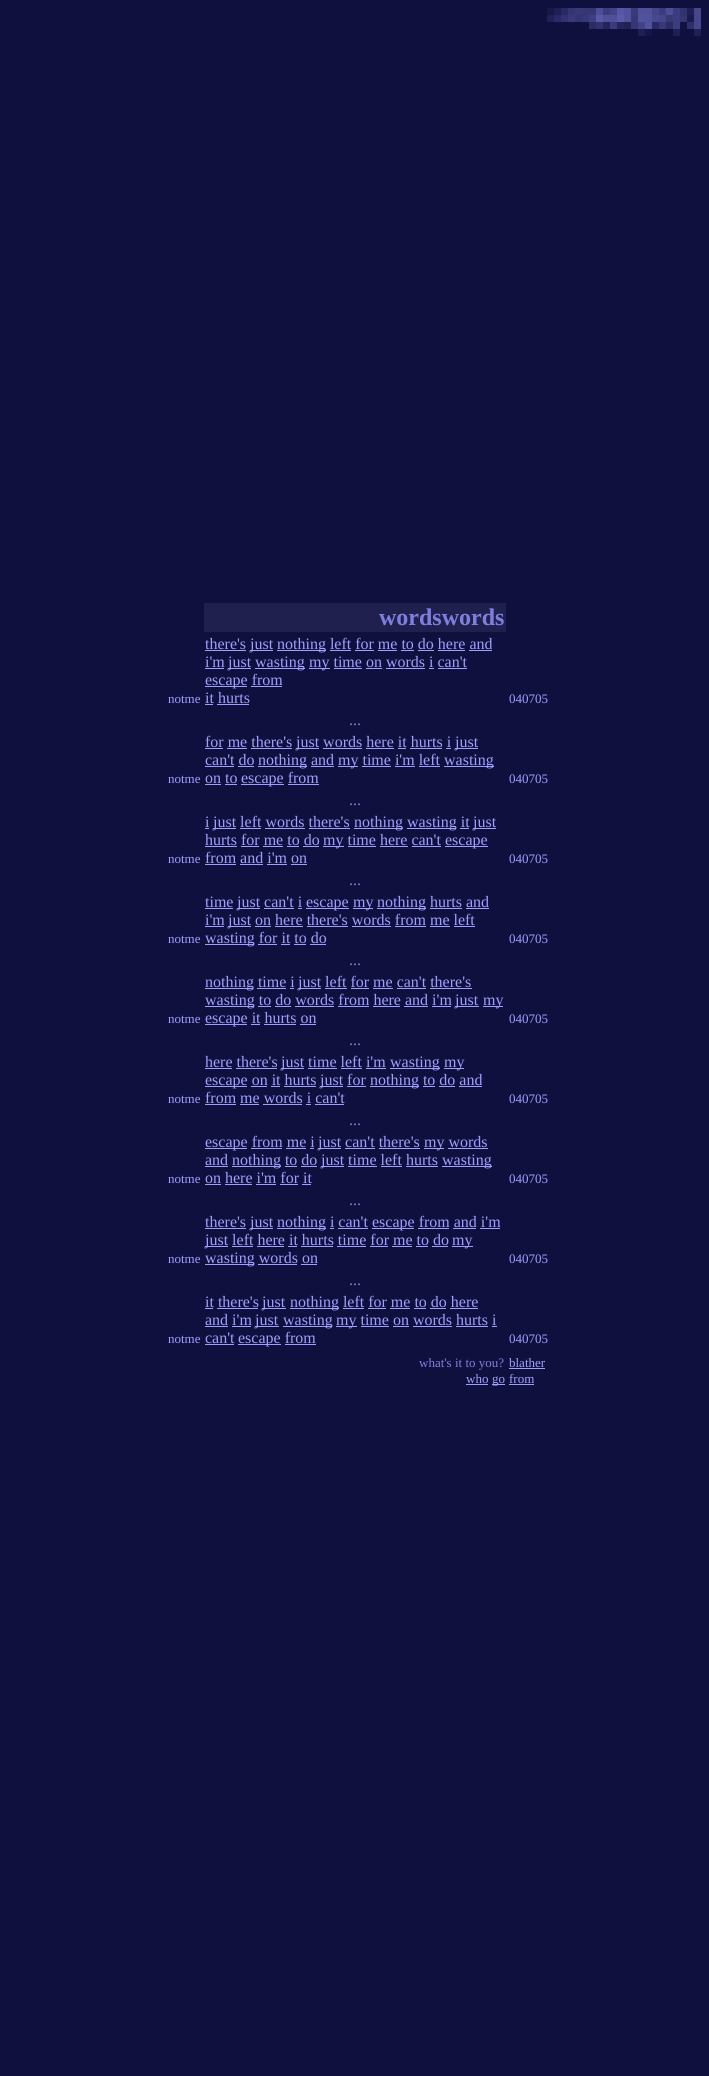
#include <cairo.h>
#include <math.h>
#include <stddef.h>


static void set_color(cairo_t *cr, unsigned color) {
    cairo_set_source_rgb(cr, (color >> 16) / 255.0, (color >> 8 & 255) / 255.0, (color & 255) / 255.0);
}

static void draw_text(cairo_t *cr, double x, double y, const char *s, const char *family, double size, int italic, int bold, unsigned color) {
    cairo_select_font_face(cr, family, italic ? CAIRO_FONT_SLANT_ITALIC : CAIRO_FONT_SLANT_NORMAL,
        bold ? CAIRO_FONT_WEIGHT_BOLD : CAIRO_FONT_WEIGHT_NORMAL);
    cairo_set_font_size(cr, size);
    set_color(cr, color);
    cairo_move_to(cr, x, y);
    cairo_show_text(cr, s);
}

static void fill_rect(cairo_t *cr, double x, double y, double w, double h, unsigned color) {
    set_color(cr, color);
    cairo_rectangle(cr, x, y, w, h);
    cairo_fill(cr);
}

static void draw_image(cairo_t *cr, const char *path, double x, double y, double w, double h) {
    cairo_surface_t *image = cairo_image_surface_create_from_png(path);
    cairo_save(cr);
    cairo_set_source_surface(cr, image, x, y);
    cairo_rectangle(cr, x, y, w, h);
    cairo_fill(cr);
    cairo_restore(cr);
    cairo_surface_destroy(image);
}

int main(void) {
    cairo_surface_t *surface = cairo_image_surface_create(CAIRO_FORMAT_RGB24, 709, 2076);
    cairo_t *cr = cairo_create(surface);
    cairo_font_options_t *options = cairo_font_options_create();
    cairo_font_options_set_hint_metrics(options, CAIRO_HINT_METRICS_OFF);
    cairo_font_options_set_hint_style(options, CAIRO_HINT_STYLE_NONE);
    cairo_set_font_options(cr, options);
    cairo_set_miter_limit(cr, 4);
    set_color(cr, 0x10103F);
    cairo_paint(cr);
    draw_image(cr, "assets/img1.png", 547, 8, 154, 28);
    fill_rect(cr, 204, 603, 302, 29, 0x20204F);
    draw_text(cr, 379, 625, "wordswords", "Liberation Serif", 24, 0, 1, 0x7F7FDF);
    draw_text(cr, 168, 703, "notme", "Liberation Serif", 13, 0, 0, 0x9F9FFF);
    draw_text(cr, 205, 649, "there's", "Liberation Serif", 16, 0, 0, 0x9F9FFF);
    fill_rect(cr, 205, 650, 41, 1, 0x9F9FFF);
    fill_rect(cr, 250, 650, 23, 1, 0x9F9FFF);
    draw_text(cr, 250, 649, "just", "Liberation Serif", 16, 0, 0, 0x9F9FFF);
    fill_rect(cr, 277, 650, 49, 1, 0x9F9FFF);
    draw_text(cr, 277, 649, "nothing left for me to do here and", "Liberation Serif", 16, 0, 0, 0x9F9FFF);
    fill_rect(cr, 330, 650, 21, 1, 0x9F9FFF);
    fill_rect(cr, 355, 650, 19, 1, 0x9F9FFF);
    fill_rect(cr, 378, 650, 19, 1, 0x9F9FFF);
    fill_rect(cr, 401, 650, 13, 1, 0x9F9FFF);
    fill_rect(cr, 418, 650, 16, 1, 0x9F9FFF);
    fill_rect(cr, 438, 650, 27, 1, 0x9F9FFF);
    fill_rect(cr, 469, 650, 23, 1, 0x9F9FFF);
    draw_text(cr, 205, 667, "i'm", "Liberation Serif", 16, 0, 0, 0x9F9FFF);
    fill_rect(cr, 205, 668, 19, 1, 0x9F9FFF);
    fill_rect(cr, 228, 668, 23, 1, 0x9F9FFF);
    draw_text(cr, 228, 667, "just", "Liberation Serif", 16, 0, 0, 0x9F9FFF);
    fill_rect(cr, 255, 668, 50, 1, 0x9F9FFF);
    draw_text(cr, 255, 667, "wasting", "Liberation Serif", 16, 0, 0, 0x9F9FFF);
    fill_rect(cr, 309, 668, 21, 1, 0x9F9FFF);
    draw_text(cr, 309, 667, "my time on words i can't", "Liberation Serif", 16, 0, 0, 0x9F9FFF);
    fill_rect(cr, 334, 668, 28, 1, 0x9F9FFF);
    fill_rect(cr, 366, 668, 16, 1, 0x9F9FFF);
    fill_rect(cr, 386, 668, 39, 1, 0x9F9FFF);
    fill_rect(cr, 429, 668, 5, 1, 0x9F9FFF);
    fill_rect(cr, 438, 668, 29, 1, 0x9F9FFF);
    fill_rect(cr, 205, 686, 42, 1, 0x9F9FFF);
    draw_text(cr, 205, 685, "escape from", "Liberation Serif", 16, 0, 0, 0x9F9FFF);
    fill_rect(cr, 251, 686, 31, 1, 0x9F9FFF);
    draw_text(cr, 205, 703, "it hurts", "Liberation Serif", 16, 0, 0, 0x9F9FFF);
    fill_rect(cr, 205, 704, 8, 1, 0x9F9FFF);
    fill_rect(cr, 217, 704, 32, 1, 0x9F9FFF);
    draw_text(cr, 509, 703, "040705", "Liberation Serif", 13, 0, 0, 0x9F9FFF);
    draw_text(cr, 349, 725, "...", "Liberation Serif", 16, 0, 0, 0x7F7FDF);
    draw_text(cr, 168, 783, "notme", "Liberation Serif", 13, 0, 0, 0x9F9FFF);
    draw_text(cr, 205, 747, "for me there's", "Liberation Serif", 16, 0, 0, 0x9F9FFF);
    fill_rect(cr, 205, 748, 18, 1, 0x9F9FFF);
    fill_rect(cr, 296, 748, 23, 1, 0x9F9FFF);
    draw_text(cr, 296, 747, "just words here it hurts i", "Liberation Serif", 16, 0, 0, 0x9F9FFF);
    fill_rect(cr, 455, 748, 23, 1, 0x9F9FFF);
    draw_text(cr, 455, 747, "just", "Liberation Serif", 16, 0, 0, 0x9F9FFF);
    fill_rect(cr, 227, 748, 20, 1, 0x9F9FFF);
    fill_rect(cr, 251, 748, 41, 1, 0x9F9FFF);
    fill_rect(cr, 323, 748, 39, 1, 0x9F9FFF);
    fill_rect(cr, 366, 748, 28, 1, 0x9F9FFF);
    fill_rect(cr, 398, 748, 8, 1, 0x9F9FFF);
    fill_rect(cr, 410, 748, 32, 1, 0x9F9FFF);
    fill_rect(cr, 446, 748, 5, 1, 0x9F9FFF);
    draw_text(cr, 205, 765, "can't do", "Liberation Serif", 16, 0, 0, 0x9F9FFF);
    fill_rect(cr, 205, 766, 29, 1, 0x9F9FFF);
    fill_rect(cr, 258, 766, 49, 1, 0x9F9FFF);
    draw_text(cr, 258, 765, "nothing and", "Liberation Serif", 16, 0, 0, 0x9F9FFF);
    fill_rect(cr, 338, 766, 20, 1, 0x9F9FFF);
    draw_text(cr, 338, 765, "my time i'm left", "Liberation Serif", 16, 0, 0, 0x9F9FFF);
    fill_rect(cr, 444, 766, 50, 1, 0x9F9FFF);
    draw_text(cr, 444, 765, "wasting", "Liberation Serif", 16, 0, 0, 0x9F9FFF);
    fill_rect(cr, 238, 766, 16, 1, 0x9F9FFF);
    fill_rect(cr, 311, 766, 23, 1, 0x9F9FFF);
    fill_rect(cr, 362, 766, 29, 1, 0x9F9FFF);
    fill_rect(cr, 395, 766, 20, 1, 0x9F9FFF);
    fill_rect(cr, 419, 766, 21, 1, 0x9F9FFF);
    draw_text(cr, 205, 783, "on to", "Liberation Serif", 16, 0, 0, 0x9F9FFF);
    fill_rect(cr, 205, 784, 16, 1, 0x9F9FFF);
    fill_rect(cr, 241, 784, 43, 1, 0x9F9FFF);
    draw_text(cr, 241, 783, "escape from", "Liberation Serif", 16, 0, 0, 0x9F9FFF);
    fill_rect(cr, 225, 784, 12, 1, 0x9F9FFF);
    fill_rect(cr, 288, 784, 31, 1, 0x9F9FFF);
    draw_text(cr, 509, 783, "040705", "Liberation Serif", 13, 0, 0, 0x9F9FFF);
    draw_text(cr, 349, 805, "...", "Liberation Serif", 16, 0, 0, 0x7F7FDF);
    draw_text(cr, 168, 863, "notme", "Liberation Serif", 13, 0, 0, 0x9F9FFF);
    draw_text(cr, 205, 827, "i", "Liberation Serif", 16, 0, 0, 0x9F9FFF);
    fill_rect(cr, 205, 828, 4, 1, 0x9F9FFF);
    fill_rect(cr, 213, 828, 23, 1, 0x9F9FFF);
    draw_text(cr, 213, 827, "just left words there's", "Liberation Serif", 16, 0, 0, 0x9F9FFF);
    fill_rect(cr, 354, 828, 49, 1, 0x9F9FFF);
    draw_text(cr, 354, 827, "nothing", "Liberation Serif", 16, 0, 0, 0x9F9FFF);
    fill_rect(cr, 407, 828, 49, 1, 0x9F9FFF);
    draw_text(cr, 407, 827, "wasting it", "Liberation Serif", 16, 0, 0, 0x9F9FFF);
    fill_rect(cr, 473, 828, 23, 1, 0x9F9FFF);
    draw_text(cr, 473, 827, "just", "Liberation Serif", 16, 0, 0, 0x9F9FFF);
    fill_rect(cr, 240, 828, 21, 1, 0x9F9FFF);
    fill_rect(cr, 265, 828, 40, 1, 0x9F9FFF);
    fill_rect(cr, 309, 828, 41, 1, 0x9F9FFF);
    fill_rect(cr, 460, 828, 9, 1, 0x9F9FFF);
    draw_text(cr, 205, 845, "hurts for me to do", "Liberation Serif", 16, 0, 0, 0x9F9FFF);
    fill_rect(cr, 205, 846, 32, 1, 0x9F9FFF);
    fill_rect(cr, 323, 846, 21, 1, 0x9F9FFF);
    draw_text(cr, 323, 845, "my time here can't", "Liberation Serif", 16, 0, 0, 0x9F9FFF);
    fill_rect(cr, 445, 846, 43, 1, 0x9F9FFF);
    draw_text(cr, 445, 845, "escape", "Liberation Serif", 16, 0, 0, 0x9F9FFF);
    fill_rect(cr, 241, 846, 18, 1, 0x9F9FFF);
    fill_rect(cr, 263, 846, 20, 1, 0x9F9FFF);
    fill_rect(cr, 287, 846, 12, 1, 0x9F9FFF);
    fill_rect(cr, 303, 846, 16, 1, 0x9F9FFF);
    fill_rect(cr, 348, 846, 28, 1, 0x9F9FFF);
    fill_rect(cr, 380, 846, 28, 1, 0x9F9FFF);
    fill_rect(cr, 412, 846, 29, 1, 0x9F9FFF);
    draw_text(cr, 205, 863, "from and i'm on", "Liberation Serif", 16, 0, 0, 0x9F9FFF);
    fill_rect(cr, 205, 864, 31, 1, 0x9F9FFF);
    fill_rect(cr, 240, 864, 23, 1, 0x9F9FFF);
    fill_rect(cr, 267, 864, 20, 1, 0x9F9FFF);
    fill_rect(cr, 291, 864, 16, 1, 0x9F9FFF);
    draw_text(cr, 509, 863, "040705", "Liberation Serif", 13, 0, 0, 0x9F9FFF);
    draw_text(cr, 349, 885, "...", "Liberation Serif", 16, 0, 0, 0x7F7FDF);
    draw_text(cr, 168, 943, "notme", "Liberation Serif", 13, 0, 0, 0x9F9FFF);
    draw_text(cr, 205, 907, "time", "Liberation Serif", 16, 0, 0, 0x9F9FFF);
    fill_rect(cr, 205, 908, 28, 1, 0x9F9FFF);
    fill_rect(cr, 237, 908, 23, 1, 0x9F9FFF);
    draw_text(cr, 237, 907, "just can't i", "Liberation Serif", 16, 0, 0, 0x9F9FFF);
    fill_rect(cr, 306, 908, 43, 1, 0x9F9FFF);
    draw_text(cr, 306, 907, "escape", "Liberation Serif", 16, 0, 0, 0x9F9FFF);
    fill_rect(cr, 353, 908, 20, 1, 0x9F9FFF);
    draw_text(cr, 353, 907, "my", "Liberation Serif", 16, 0, 0, 0x9F9FFF);
    fill_rect(cr, 377, 908, 49, 1, 0x9F9FFF);
    draw_text(cr, 377, 907, "nothing hurts and", "Liberation Serif", 16, 0, 0, 0x9F9FFF);
    fill_rect(cr, 264, 908, 30, 1, 0x9F9FFF);
    fill_rect(cr, 298, 908, 4, 1, 0x9F9FFF);
    fill_rect(cr, 430, 908, 32, 1, 0x9F9FFF);
    fill_rect(cr, 466, 908, 23, 1, 0x9F9FFF);
    draw_text(cr, 205, 925, "i'm", "Liberation Serif", 16, 0, 0, 0x9F9FFF);
    fill_rect(cr, 205, 926, 19, 1, 0x9F9FFF);
    fill_rect(cr, 228, 926, 23, 1, 0x9F9FFF);
    draw_text(cr, 228, 925, "just on here there's words from me left", "Liberation Serif", 16, 0, 0, 0x9F9FFF);
    fill_rect(cr, 255, 926, 16, 1, 0x9F9FFF);
    fill_rect(cr, 275, 926, 28, 1, 0x9F9FFF);
    fill_rect(cr, 307, 926, 41, 1, 0x9F9FFF);
    fill_rect(cr, 352, 926, 39, 1, 0x9F9FFF);
    fill_rect(cr, 395, 926, 31, 1, 0x9F9FFF);
    fill_rect(cr, 430, 926, 20, 1, 0x9F9FFF);
    fill_rect(cr, 454, 926, 21, 1, 0x9F9FFF);
    fill_rect(cr, 205, 944, 49, 1, 0x9F9FFF);
    draw_text(cr, 205, 943, "wasting for it to do", "Liberation Serif", 16, 0, 0, 0x9F9FFF);
    fill_rect(cr, 258, 944, 19, 1, 0x9F9FFF);
    fill_rect(cr, 281, 944, 9, 1, 0x9F9FFF);
    fill_rect(cr, 294, 944, 12, 1, 0x9F9FFF);
    fill_rect(cr, 310, 944, 16, 1, 0x9F9FFF);
    draw_text(cr, 509, 943, "040705", "Liberation Serif", 13, 0, 0, 0x9F9FFF);
    draw_text(cr, 349, 965, "...", "Liberation Serif", 16, 0, 0, 0x7F7FDF);
    draw_text(cr, 168, 1023, "notme", "Liberation Serif", 13, 0, 0, 0x9F9FFF);
    fill_rect(cr, 205, 988, 48, 1, 0x9F9FFF);
    draw_text(cr, 205, 987, "nothing time i", "Liberation Serif", 16, 0, 0, 0x9F9FFF);
    fill_rect(cr, 298, 988, 23, 1, 0x9F9FFF);
    draw_text(cr, 298, 987, "just left for me can't there's", "Liberation Serif", 16, 0, 0, 0x9F9FFF);
    fill_rect(cr, 257, 988, 29, 1, 0x9F9FFF);
    fill_rect(cr, 290, 988, 4, 1, 0x9F9FFF);
    fill_rect(cr, 325, 988, 22, 1, 0x9F9FFF);
    fill_rect(cr, 351, 988, 18, 1, 0x9F9FFF);
    fill_rect(cr, 373, 988, 20, 1, 0x9F9FFF);
    fill_rect(cr, 397, 988, 29, 1, 0x9F9FFF);
    fill_rect(cr, 430, 988, 42, 1, 0x9F9FFF);
    fill_rect(cr, 205, 1006, 49, 1, 0x9F9FFF);
    draw_text(cr, 205, 1005, "wasting to do words from here and i'm", "Liberation Serif", 16, 0, 0, 0x9F9FFF);
    fill_rect(cr, 455, 1006, 24, 1, 0x9F9FFF);
    draw_text(cr, 455, 1005, "just", "Liberation Serif", 16, 0, 0, 0x9F9FFF);
    fill_rect(cr, 483, 1006, 20, 1, 0x9F9FFF);
    draw_text(cr, 483, 1005, "my", "Liberation Serif", 16, 0, 0, 0x9F9FFF);
    fill_rect(cr, 258, 1006, 13, 1, 0x9F9FFF);
    fill_rect(cr, 275, 1006, 16, 1, 0x9F9FFF);
    fill_rect(cr, 295, 1006, 39, 1, 0x9F9FFF);
    fill_rect(cr, 338, 1006, 31, 1, 0x9F9FFF);
    fill_rect(cr, 373, 1006, 27, 1, 0x9F9FFF);
    fill_rect(cr, 404, 1006, 24, 1, 0x9F9FFF);
    fill_rect(cr, 432, 1006, 19, 1, 0x9F9FFF);
    fill_rect(cr, 205, 1024, 42, 1, 0x9F9FFF);
    draw_text(cr, 205, 1023, "escape it hurts on", "Liberation Serif", 16, 0, 0, 0x9F9FFF);
    fill_rect(cr, 251, 1024, 9, 1, 0x9F9FFF);
    fill_rect(cr, 264, 1024, 32, 1, 0x9F9FFF);
    fill_rect(cr, 300, 1024, 16, 1, 0x9F9FFF);
    draw_text(cr, 509, 1023, "040705", "Liberation Serif", 13, 0, 0, 0x9F9FFF);
    draw_text(cr, 349, 1045, "...", "Liberation Serif", 16, 0, 0, 0x7F7FDF);
    draw_text(cr, 168, 1103, "notme", "Liberation Serif", 13, 0, 0, 0x9F9FFF);
    draw_text(cr, 205, 1067, "here there's", "Liberation Serif", 16, 0, 0, 0x9F9FFF);
    fill_rect(cr, 205, 1068, 27, 1, 0x9F9FFF);
    fill_rect(cr, 281, 1068, 23, 1, 0x9F9FFF);
    draw_text(cr, 281, 1067, "just time left i'm", "Liberation Serif", 16, 0, 0, 0x9F9FFF);
    fill_rect(cr, 390, 1068, 50, 1, 0x9F9FFF);
    draw_text(cr, 390, 1067, "wasting", "Liberation Serif", 16, 0, 0, 0x9F9FFF);
    fill_rect(cr, 444, 1068, 20, 1, 0x9F9FFF);
    draw_text(cr, 444, 1067, "my", "Liberation Serif", 16, 0, 0, 0x9F9FFF);
    fill_rect(cr, 236, 1068, 41, 1, 0x9F9FFF);
    fill_rect(cr, 308, 1068, 29, 1, 0x9F9FFF);
    fill_rect(cr, 341, 1068, 21, 1, 0x9F9FFF);
    fill_rect(cr, 366, 1068, 20, 1, 0x9F9FFF);
    fill_rect(cr, 205, 1086, 42, 1, 0x9F9FFF);
    draw_text(cr, 205, 1085, "escape on it hurts", "Liberation Serif", 16, 0, 0, 0x9F9FFF);
    fill_rect(cr, 320, 1086, 23, 1, 0x9F9FFF);
    draw_text(cr, 320, 1085, "just for", "Liberation Serif", 16, 0, 0, 0x9F9FFF);
    fill_rect(cr, 370, 1086, 49, 1, 0x9F9FFF);
    draw_text(cr, 370, 1085, "nothing to do and", "Liberation Serif", 16, 0, 0, 0x9F9FFF);
    fill_rect(cr, 251, 1086, 16, 1, 0x9F9FFF);
    fill_rect(cr, 271, 1086, 9, 1, 0x9F9FFF);
    fill_rect(cr, 284, 1086, 32, 1, 0x9F9FFF);
    fill_rect(cr, 347, 1086, 19, 1, 0x9F9FFF);
    fill_rect(cr, 423, 1086, 12, 1, 0x9F9FFF);
    fill_rect(cr, 439, 1086, 16, 1, 0x9F9FFF);
    fill_rect(cr, 459, 1086, 23, 1, 0x9F9FFF);
    draw_text(cr, 205, 1103, "from me words i can't", "Liberation Serif", 16, 0, 0, 0x9F9FFF);
    fill_rect(cr, 205, 1104, 31, 1, 0x9F9FFF);
    fill_rect(cr, 240, 1104, 19, 1, 0x9F9FFF);
    fill_rect(cr, 263, 1104, 39, 1, 0x9F9FFF);
    fill_rect(cr, 306, 1104, 5, 1, 0x9F9FFF);
    fill_rect(cr, 315, 1104, 29, 1, 0x9F9FFF);
    draw_text(cr, 509, 1103, "040705", "Liberation Serif", 13, 0, 0, 0x9F9FFF);
    draw_text(cr, 349, 1125, "...", "Liberation Serif", 16, 0, 0, 0x7F7FDF);
    draw_text(cr, 168, 1183, "notme", "Liberation Serif", 13, 0, 0, 0x9F9FFF);
    fill_rect(cr, 205, 1148, 42, 1, 0x9F9FFF);
    draw_text(cr, 205, 1147, "escape from me i", "Liberation Serif", 16, 0, 0, 0x9F9FFF);
    fill_rect(cr, 318, 1148, 23, 1, 0x9F9FFF);
    draw_text(cr, 318, 1147, "just can't there's", "Liberation Serif", 16, 0, 0, 0x9F9FFF);
    fill_rect(cr, 424, 1148, 20, 1, 0x9F9FFF);
    draw_text(cr, 424, 1147, "my words", "Liberation Serif", 16, 0, 0, 0x9F9FFF);
    fill_rect(cr, 251, 1148, 31, 1, 0x9F9FFF);
    fill_rect(cr, 286, 1148, 20, 1, 0x9F9FFF);
    fill_rect(cr, 310, 1148, 4, 1, 0x9F9FFF);
    fill_rect(cr, 345, 1148, 30, 1, 0x9F9FFF);
    fill_rect(cr, 379, 1148, 41, 1, 0x9F9FFF);
    fill_rect(cr, 448, 1148, 40, 1, 0x9F9FFF);
    draw_text(cr, 205, 1165, "and", "Liberation Serif", 16, 0, 0, 0x9F9FFF);
    fill_rect(cr, 205, 1166, 23, 1, 0x9F9FFF);
    fill_rect(cr, 232, 1166, 49, 1, 0x9F9FFF);
    draw_text(cr, 232, 1165, "nothing to do", "Liberation Serif", 16, 0, 0, 0x9F9FFF);
    fill_rect(cr, 321, 1166, 23, 1, 0x9F9FFF);
    draw_text(cr, 321, 1165, "just time left hurts", "Liberation Serif", 16, 0, 0, 0x9F9FFF);
    fill_rect(cr, 442, 1166, 50, 1, 0x9F9FFF);
    draw_text(cr, 442, 1165, "wasting", "Liberation Serif", 16, 0, 0, 0x9F9FFF);
    fill_rect(cr, 285, 1166, 12, 1, 0x9F9FFF);
    fill_rect(cr, 301, 1166, 16, 1, 0x9F9FFF);
    fill_rect(cr, 348, 1166, 29, 1, 0x9F9FFF);
    fill_rect(cr, 381, 1166, 21, 1, 0x9F9FFF);
    fill_rect(cr, 406, 1166, 32, 1, 0x9F9FFF);
    draw_text(cr, 205, 1183, "on here i'm for it", "Liberation Serif", 16, 0, 0, 0x9F9FFF);
    fill_rect(cr, 205, 1184, 16, 1, 0x9F9FFF);
    fill_rect(cr, 225, 1184, 27, 1, 0x9F9FFF);
    fill_rect(cr, 256, 1184, 20, 1, 0x9F9FFF);
    fill_rect(cr, 280, 1184, 18, 1, 0x9F9FFF);
    fill_rect(cr, 302, 1184, 9, 1, 0x9F9FFF);
    draw_text(cr, 509, 1183, "040705", "Liberation Serif", 13, 0, 0, 0x9F9FFF);
    draw_text(cr, 349, 1205, "...", "Liberation Serif", 16, 0, 0, 0x7F7FDF);
    draw_text(cr, 168, 1263, "notme", "Liberation Serif", 13, 0, 0, 0x9F9FFF);
    draw_text(cr, 205, 1227, "there's", "Liberation Serif", 16, 0, 0, 0x9F9FFF);
    fill_rect(cr, 205, 1228, 41, 1, 0x9F9FFF);
    fill_rect(cr, 250, 1228, 23, 1, 0x9F9FFF);
    draw_text(cr, 250, 1227, "just", "Liberation Serif", 16, 0, 0, 0x9F9FFF);
    fill_rect(cr, 277, 1228, 49, 1, 0x9F9FFF);
    draw_text(cr, 277, 1227, "nothing i can't", "Liberation Serif", 16, 0, 0, 0x9F9FFF);
    fill_rect(cr, 372, 1228, 42, 1, 0x9F9FFF);
    draw_text(cr, 372, 1227, "escape from and i'm", "Liberation Serif", 16, 0, 0, 0x9F9FFF);
    fill_rect(cr, 330, 1228, 4, 1, 0x9F9FFF);
    fill_rect(cr, 338, 1228, 30, 1, 0x9F9FFF);
    fill_rect(cr, 418, 1228, 31, 1, 0x9F9FFF);
    fill_rect(cr, 453, 1228, 23, 1, 0x9F9FFF);
    fill_rect(cr, 480, 1228, 20, 1, 0x9F9FFF);
    fill_rect(cr, 205, 1246, 23, 1, 0x9F9FFF);
    draw_text(cr, 205, 1245, "just left here it hurts time for me to do", "Liberation Serif", 16, 0, 0, 0x9F9FFF);
    fill_rect(cr, 452, 1246, 21, 1, 0x9F9FFF);
    draw_text(cr, 452, 1245, "my", "Liberation Serif", 16, 0, 0, 0x9F9FFF);
    fill_rect(cr, 232, 1246, 21, 1, 0x9F9FFF);
    fill_rect(cr, 257, 1246, 27, 1, 0x9F9FFF);
    fill_rect(cr, 288, 1246, 9, 1, 0x9F9FFF);
    fill_rect(cr, 301, 1246, 32, 1, 0x9F9FFF);
    fill_rect(cr, 337, 1246, 29, 1, 0x9F9FFF);
    fill_rect(cr, 370, 1246, 18, 1, 0x9F9FFF);
    fill_rect(cr, 392, 1246, 20, 1, 0x9F9FFF);
    fill_rect(cr, 416, 1246, 12, 1, 0x9F9FFF);
    fill_rect(cr, 432, 1246, 16, 1, 0x9F9FFF);
    fill_rect(cr, 205, 1264, 49, 1, 0x9F9FFF);
    draw_text(cr, 205, 1263, "wasting words on", "Liberation Serif", 16, 0, 0, 0x9F9FFF);
    fill_rect(cr, 258, 1264, 39, 1, 0x9F9FFF);
    fill_rect(cr, 301, 1264, 16, 1, 0x9F9FFF);
    draw_text(cr, 509, 1263, "040705", "Liberation Serif", 13, 0, 0, 0x9F9FFF);
    draw_text(cr, 349, 1285, "...", "Liberation Serif", 16, 0, 0, 0x7F7FDF);
    draw_text(cr, 168, 1343, "notme", "Liberation Serif", 13, 0, 0, 0x9F9FFF);
    draw_text(cr, 205, 1307, "it there's", "Liberation Serif", 16, 0, 0, 0x9F9FFF);
    fill_rect(cr, 205, 1308, 8, 1, 0x9F9FFF);
    fill_rect(cr, 262, 1308, 24, 1, 0x9F9FFF);
    draw_text(cr, 262, 1307, "just", "Liberation Serif", 16, 0, 0, 0x9F9FFF);
    fill_rect(cr, 290, 1308, 49, 1, 0x9F9FFF);
    draw_text(cr, 290, 1307, "nothing left for me to do here", "Liberation Serif", 16, 0, 0, 0x9F9FFF);
    fill_rect(cr, 217, 1308, 41, 1, 0x9F9FFF);
    fill_rect(cr, 343, 1308, 21, 1, 0x9F9FFF);
    fill_rect(cr, 368, 1308, 18, 1, 0x9F9FFF);
    fill_rect(cr, 390, 1308, 20, 1, 0x9F9FFF);
    fill_rect(cr, 414, 1308, 12, 1, 0x9F9FFF);
    fill_rect(cr, 430, 1308, 16, 1, 0x9F9FFF);
    fill_rect(cr, 450, 1308, 28, 1, 0x9F9FFF);
    draw_text(cr, 205, 1325, "and i'm", "Liberation Serif", 16, 0, 0, 0x9F9FFF);
    fill_rect(cr, 205, 1326, 23, 1, 0x9F9FFF);
    fill_rect(cr, 255, 1326, 24, 1, 0x9F9FFF);
    draw_text(cr, 255, 1325, "just", "Liberation Serif", 16, 0, 0, 0x9F9FFF);
    fill_rect(cr, 283, 1326, 49, 1, 0x9F9FFF);
    draw_text(cr, 283, 1325, "wasting", "Liberation Serif", 16, 0, 0, 0x9F9FFF);
    fill_rect(cr, 336, 1326, 21, 1, 0x9F9FFF);
    draw_text(cr, 336, 1325, "my time on words hurts i", "Liberation Serif", 16, 0, 0, 0x9F9FFF);
    fill_rect(cr, 232, 1326, 19, 1, 0x9F9FFF);
    fill_rect(cr, 361, 1326, 28, 1, 0x9F9FFF);
    fill_rect(cr, 393, 1326, 16, 1, 0x9F9FFF);
    fill_rect(cr, 413, 1326, 39, 1, 0x9F9FFF);
    fill_rect(cr, 456, 1326, 32, 1, 0x9F9FFF);
    fill_rect(cr, 492, 1326, 5, 1, 0x9F9FFF);
    draw_text(cr, 205, 1343, "can't", "Liberation Serif", 16, 0, 0, 0x9F9FFF);
    fill_rect(cr, 205, 1344, 29, 1, 0x9F9FFF);
    fill_rect(cr, 238, 1344, 43, 1, 0x9F9FFF);
    draw_text(cr, 238, 1343, "escape from", "Liberation Serif", 16, 0, 0, 0x9F9FFF);
    fill_rect(cr, 285, 1344, 31, 1, 0x9F9FFF);
    draw_text(cr, 509, 1343, "040705", "Liberation Serif", 13, 0, 0, 0x9F9FFF);
    draw_text(cr, 419, 1367, "what's it to you?", "Liberation Serif", 13, 0, 0, 0x7F7FDF);
    draw_text(cr, 466, 1383, "who", "Liberation Serif", 13, 0, 0, 0x9F9FFF);
    fill_rect(cr, 466, 1384, 22, 1, 0x9F9FFF);
    fill_rect(cr, 492, 1384, 13, 1, 0x9F9FFF);
    draw_text(cr, 492, 1383, "go", "Liberation Serif", 13, 0, 0, 0x9F9FFF);
    draw_text(cr, 509, 1367, "blather", "Liberation Serif", 13, 0, 0, 0x9F9FFF);
    fill_rect(cr, 509, 1368, 36, 1, 0x9F9FFF);
    draw_text(cr, 509, 1383, "from", "Liberation Serif", 13, 0, 0, 0x9F9FFF);
    fill_rect(cr, 509, 1384, 25, 1, 0x9F9FFF);
    cairo_surface_write_to_png(surface, "output.png");
    cairo_font_options_destroy(options);
    cairo_destroy(cr);
    cairo_surface_destroy(surface);
    return 0;
}
